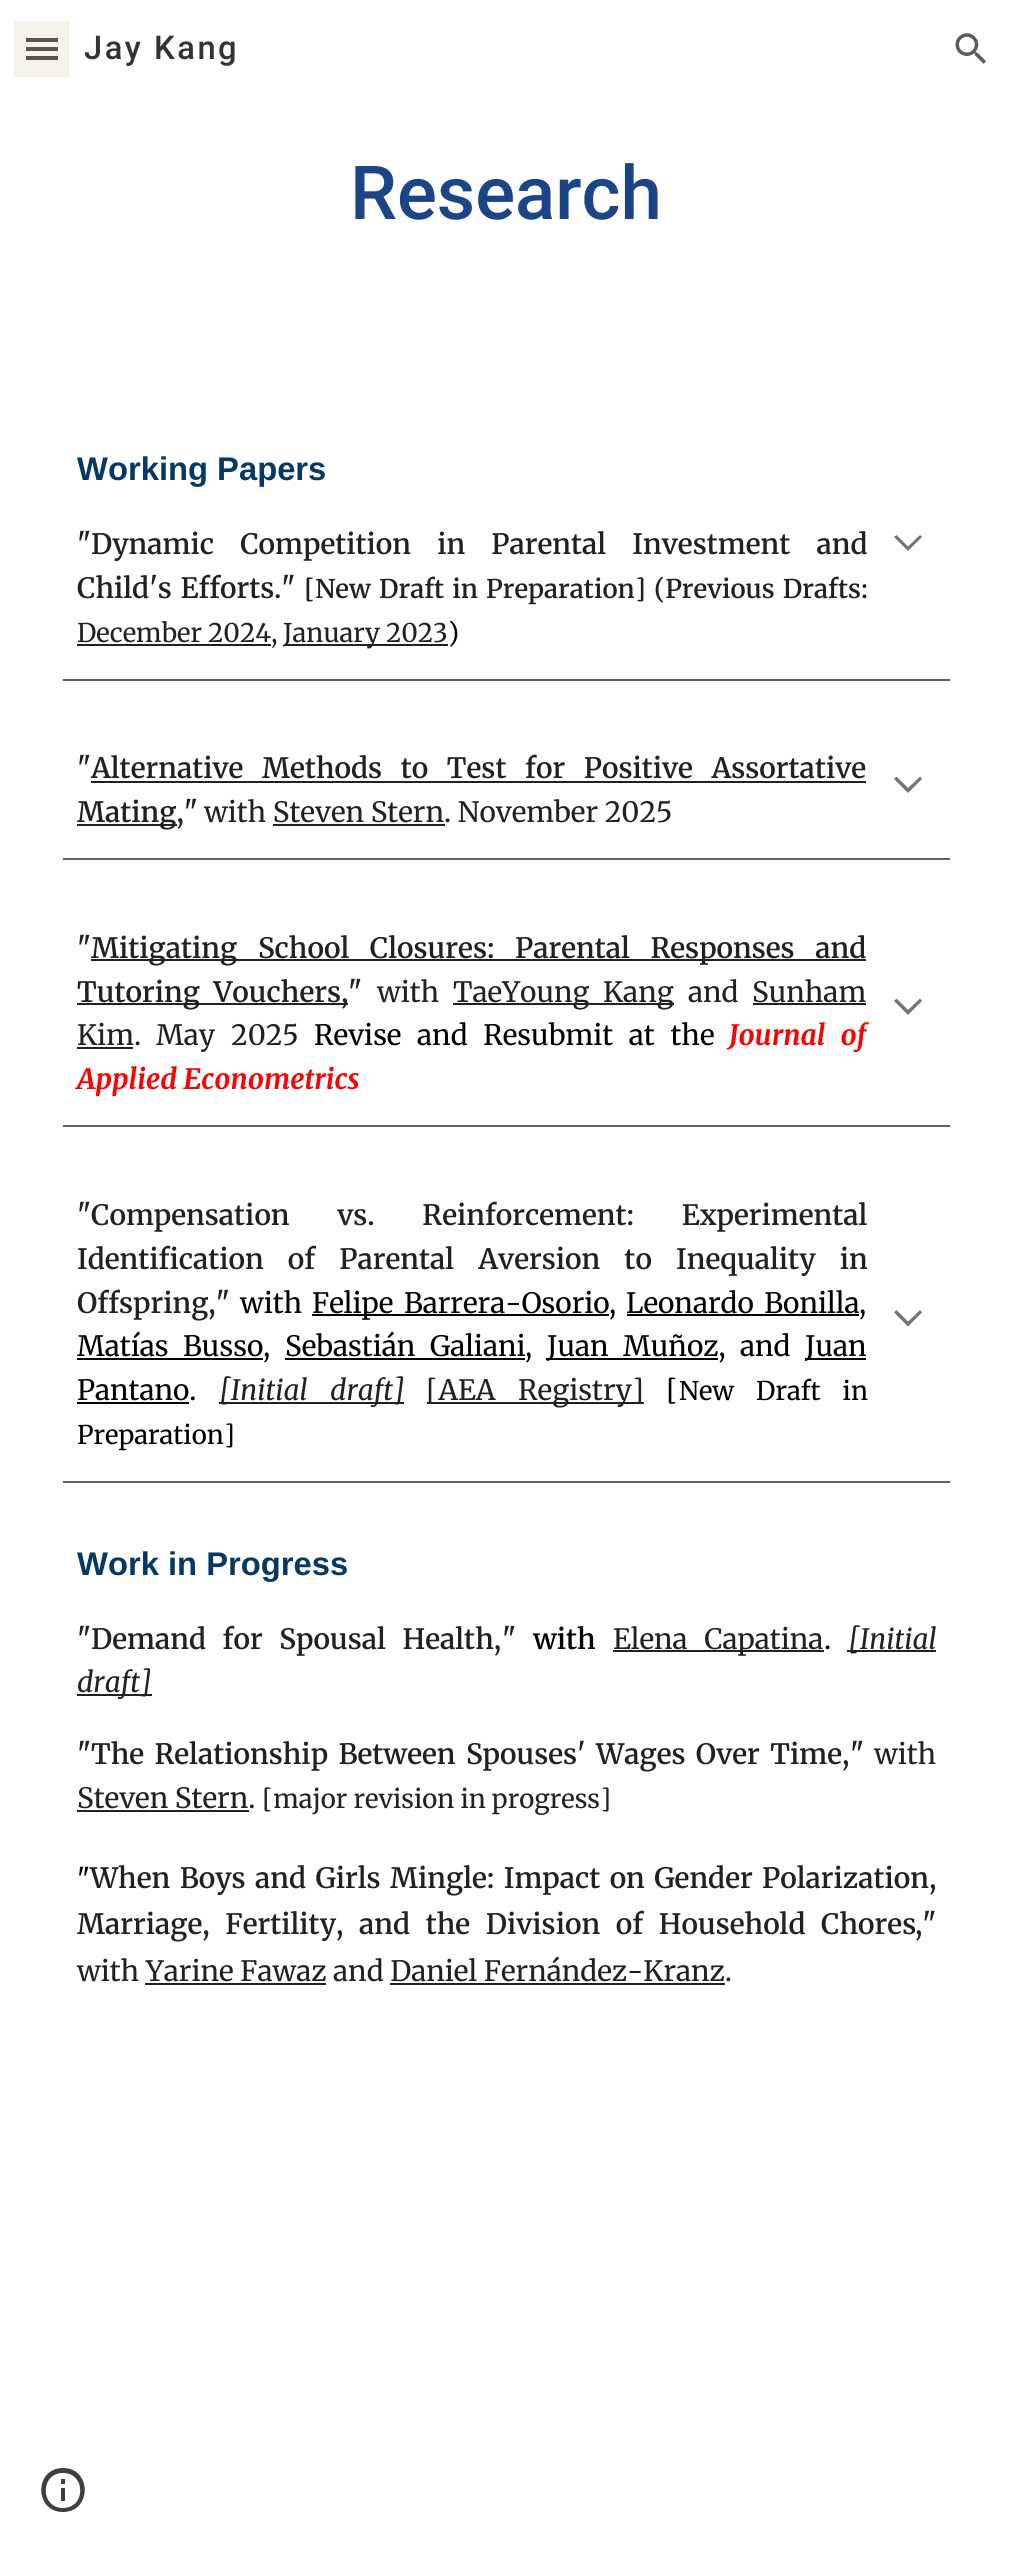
#include <cairo.h>
#include <math.h>
#include <stddef.h>


static void set_color(cairo_t *cr, unsigned color) {
    cairo_set_source_rgb(cr, (color >> 16) / 255.0, (color >> 8 & 255) / 255.0, (color & 255) / 255.0);
}

static void draw_text(cairo_t *cr, double x, double y, const char *s, const char *family, double size, int italic, int bold, unsigned color) {
    cairo_select_font_face(cr, family, italic ? CAIRO_FONT_SLANT_ITALIC : CAIRO_FONT_SLANT_NORMAL,
        bold ? CAIRO_FONT_WEIGHT_BOLD : CAIRO_FONT_WEIGHT_NORMAL);
    cairo_set_font_size(cr, size);
    set_color(cr, color);
    cairo_move_to(cr, x, y);
    cairo_show_text(cr, s);
}

static void draw_spaced(cairo_t *cr, double x, double y, const char *s, double letter, double word) {
    cairo_move_to(cr, x, y);
    while (*s) {
        char ch[5] = {0};
        int n = 0;
        do ch[n++] = *s++; while ((*s & 0xC0) == 0x80);
        cairo_show_text(cr, ch);
        cairo_rel_move_to(cr, letter + word * (*ch == ' '), 0);
    }
}

static void fill_rect(cairo_t *cr, double x, double y, double w, double h, unsigned color) {
    set_color(cr, color);
    cairo_rectangle(cr, x, y, w, h);
    cairo_fill(cr);
}

static void draw_image(cairo_t *cr, const char *path, double x, double y, double w, double h) {
    cairo_surface_t *image = cairo_image_surface_create_from_png(path);
    cairo_save(cr);
    cairo_set_source_surface(cr, image, x, y);
    cairo_rectangle(cr, x, y, w, h);
    cairo_fill(cr);
    cairo_restore(cr);
    cairo_surface_destroy(image);
}

int main(void) {
    cairo_surface_t *surface = cairo_image_surface_create(CAIRO_FORMAT_RGB24, 1013, 2572);
    cairo_t *cr = cairo_create(surface);
    cairo_font_options_t *options = cairo_font_options_create();
    cairo_font_options_set_hint_metrics(options, CAIRO_HINT_METRICS_OFF);
    cairo_font_options_set_hint_style(options, CAIRO_HINT_STYLE_NONE);
    cairo_set_font_options(cr, options);
    cairo_set_miter_limit(cr, 4);
    set_color(cr, 0xFFFFFF);
    cairo_paint(cr);
    fill_rect(cr, 14, 21, 56, 56, 0xF6F3EA);
    fill_rect(cr, 26, 38, 32, 4, 0x5A564D);
    fill_rect(cr, 26, 47, 32, 4, 0x5A564D);
    fill_rect(cr, 26, 56, 32, 4, 0x5A564D);
    cairo_select_font_face(cr, "Roboto Medium", CAIRO_FONT_SLANT_NORMAL, CAIRO_FONT_WEIGHT_NORMAL);
    cairo_set_font_size(cr, 32.75);
    set_color(cr, 0x333333);
    draw_spaced(cr, 84, 59, "Jay Kang", 2.5, 0);
    draw_image(cr, "assets/img1.png", 955, 33, 31, 31);
    draw_text(cr, 350, 219, "Research", "Roboto Medium", 74.5, 0, 0, 0x1C4587);
    fill_rect(cr, 63, 679, 887, 2, 0x5F6368);
    draw_text(cr, 77, 480, "Working Papers", "Liberation Sans", 32.75, 0, 1, 0x073763);
    draw_text(cr, 77, 554, "\"", "Merriweather SemiBold", 28, 0, 0, 0x212121);
    draw_spaced(cr, 91, 554, "Dynamic Competition in Parental Investment and", 0, 19.5);
    draw_spaced(cr, 77, 598, "Child's Efforts", 0, 2);
    draw_text(cr, 274, 598, ".\"", "Merriweather SemiBold", 28, 0, 0, 0x212121);
    draw_text(cr, 304, 598, "[New", "Merriweather SemiBold", 25.7, 0, 0, 0x212121);
    draw_spaced(cr, 379, 598, "Draft in Preparation] (Previous Drafts:", 0, 2);
    fill_rect(cr, 77, 644, 194, 2, 0x212121);
    draw_text(cr, 77, 642, "December 2024,", "Merriweather", 25.7, 0, 0, 0x212121);
    fill_rect(cr, 284, 644, 164, 2, 0x212121);
    draw_text(cr, 283, 642, "January 2023", "Merriweather", 25.7, 0, 0, 0x212121);
    draw_text(cr, 448, 642, ")", "Merriweather", 25.7, 0, 0, 0x000000);
    set_color(cr, 0x757575);
    cairo_new_path(cr);
    cairo_move_to(cr, 896.5, 535);
    cairo_line_to(cr, 894, 537);
    cairo_line_to(cr, 908, 551);
    cairo_line_to(cr, 922, 537);
    cairo_line_to(cr, 920, 535);
    cairo_line_to(cr, 908, 546.5);
    cairo_fill(cr);
    fill_rect(cr, 63, 858, 887, 2, 0x5F6368);
    draw_text(cr, 77, 778, "\"", "Merriweather SemiBold", 28, 0, 0, 0x212121);
    draw_spaced(cr, 91, 778, "Alternative Methods to Test for Positive Assortative", 0, 12);
    fill_rect(cr, 91, 781, 775, 2, 0x212121);
    fill_rect(cr, 77, 824, 100, 2, 0x212121);
    draw_text(cr, 77, 822, "Mating,\"", "Merriweather SemiBold", 28, 0, 0, 0x212121);
    draw_text(cr, 204, 822, "with Steven Stern. November 2025", "Merriweather", 28, 0, 0, 0x212121);
    fill_rect(cr, 273, 824, 172, 2, 0x212121);
    set_color(cr, 0x757575);
    cairo_new_path(cr);
    cairo_move_to(cr, 896.5, 776.5);
    cairo_line_to(cr, 894, 779);
    cairo_line_to(cr, 908, 793);
    cairo_line_to(cr, 922, 779);
    cairo_line_to(cr, 920, 776.5);
    cairo_line_to(cr, 908, 788);
    cairo_fill(cr);
    fill_rect(cr, 63, 1125, 887, 2, 0x5F6368);
    draw_text(cr, 77, 958, "\"", "Merriweather SemiBold", 28, 0, 0, 0x212121);
    fill_rect(cr, 91, 959, 775, 2, 0x212121);
    draw_spaced(cr, 91, 958, "Mitigating School Closures: Parental Responses and", 0, 14);
    fill_rect(cr, 77, 1003, 271, 2, 0x212121);
    draw_spaced(cr, 77, 1002, "Tutoring Vouchers,", 0, 7);
    draw_text(cr, 348, 1002, "\"", "Merriweather SemiBold", 28, 0, 0, 0x212121);
    draw_text(cr, 377, 1002, "with", "Merriweather", 28, 0, 0, 0x212121);
    fill_rect(cr, 453, 1003, 221, 2, 0x212121);
    draw_text(cr, 453, 1002, "TaeYoung", "Merriweather", 28, 0, 0, 0x212121);
    draw_text(cr, 603, 1002, "Kang", "Merriweather", 28, 0, 0, 0x212121);
    draw_text(cr, 688, 1002, "and", "Merriweather", 28, 0, 0, 0x212121);
    draw_text(cr, 752, 1002, "Sunham", "Merriweather", 28, 0, 0, 0x212121);
    fill_rect(cr, 753, 1003, 113, 2, 0x212121);
    draw_text(cr, 77, 1045, "Kim.", "Merriweather", 28, 0, 0, 0x212121);
    fill_rect(cr, 77, 1047, 56, 2, 0x212121);
    draw_text(cr, 156, 1045, "May", "Merriweather", 28, 0, 0, 0x212121);
    draw_text(cr, 231, 1045, "2025", "Merriweather", 28, 0, 0, 0x212121);
    set_color(cr, 0x000000);
    draw_spaced(cr, 314, 1045, "Revise and Resubmit at the", 0, 9);
    cairo_select_font_face(cr, "Merriweather", CAIRO_FONT_SLANT_ITALIC, CAIRO_FONT_WEIGHT_BOLD);
    set_color(cr, 0xFF0000);
    draw_spaced(cr, 729, 1045, "Journal of", 0, 9);
    draw_text(cr, 77, 1089, "Applied Econometrics", "Merriweather", 28, 1, 1, 0xFF0000);
    set_color(cr, 0x757575);
    cairo_new_path(cr);
    cairo_move_to(cr, 896.5, 998.5);
    cairo_line_to(cr, 894, 1001);
    cairo_line_to(cr, 908, 1015);
    cairo_line_to(cr, 922, 1001);
    cairo_line_to(cr, 920, 998.5);
    cairo_line_to(cr, 908, 1010);
    cairo_fill(cr);
    fill_rect(cr, 63, 1481, 887, 2, 0x5F6368);
    draw_text(cr, 77, 1225, "\"", "Merriweather SemiBold", 28, 0, 0, 0x212121);
    draw_spaced(cr, 91, 1225, "Compensation vs. Reinforcement: Experimental", 0, 41);
    draw_spaced(cr, 77, 1269, "Identification of Parental Aversion to Inequality in", 0, 17.5);
    draw_text(cr, 77, 1313, "Offspring,\"", "Merriweather SemiBold", 28, 0, 0, 0x212121);
    draw_text(cr, 240, 1313, "with", "Merriweather", 28, 0, 0, 0x000000);
    fill_rect(cr, 312, 1314, 297, 2, 0x000000);
    draw_spaced(cr, 312, 1313, "Felipe Barrera-Osorio", 0, 4);
    draw_text(cr, 609, 1313, ",", "Merriweather", 28, 0, 0, 0x000000);
    draw_spaced(cr, 626, 1313, "Leonardo Bonilla", 0, 4);
    fill_rect(cr, 627, 1314, 232, 2, 0x000000);
    draw_text(cr, 859, 1313, ",", "Merriweather", 28, 0, 0, 0x000000);
    draw_spaced(cr, 77, 1356, "Matías Busso", 0, 8);
    fill_rect(cr, 77, 1358, 186, 2, 0x000000);
    draw_text(cr, 263, 1356, ",", "Merriweather", 28, 0, 0, 0x000000);
    draw_spaced(cr, 285, 1356, "Sebastián Galiani", 0, 8);
    fill_rect(cr, 285, 1358, 240, 2, 0x000000);
    draw_text(cr, 525, 1356, ",", "Merriweather", 28, 0, 0, 0x000000);
    fill_rect(cr, 546, 1358, 172, 2, 0x000000);
    draw_text(cr, 547, 1356, "Juan", "Merriweather", 28, 0, 0, 0x000000);
    draw_text(cr, 623, 1356, "Muñoz,", "Merriweather", 28, 0, 0, 0x000000);
    draw_text(cr, 740, 1356, "and", "Merriweather", 28, 0, 0, 0x000000);
    fill_rect(cr, 805, 1358, 61, 2, 0x000000);
    draw_text(cr, 805, 1356, "Juan", "Merriweather", 28, 0, 0, 0x000000);
    draw_text(cr, 77, 1400, "Pantano.", "Merriweather", 28, 0, 0, 0x000000);
    fill_rect(cr, 77, 1402, 112, 2, 0x000000);
    fill_rect(cr, 219, 1402, 185, 2, 0x212121);
    cairo_select_font_face(cr, "Merriweather", CAIRO_FONT_SLANT_ITALIC, CAIRO_FONT_WEIGHT_NORMAL);
    draw_spaced(cr, 219, 1400, "[Initial draft]", 0, 16);
    fill_rect(cr, 427, 1402, 217, 2, 0x212121);
    cairo_select_font_face(cr, "Merriweather", CAIRO_FONT_SLANT_NORMAL, CAIRO_FONT_WEIGHT_NORMAL);
    draw_spaced(cr, 426, 1400, "[AEA Registry]", 0, 16);
    draw_text(cr, 666, 1400, "[", "Merriweather", 28, 0, 0, 0x000000);
    cairo_set_font_size(cr, 25.7);
    draw_spaced(cr, 679, 1400, "New Draft in", 0, 16);
    draw_text(cr, 77, 1444, "Preparation]", "Merriweather", 25.7, 0, 0, 0x000000);
    set_color(cr, 0x757575);
    cairo_new_path(cr);
    cairo_move_to(cr, 896.5, 1310);
    cairo_line_to(cr, 894, 1312.5);
    cairo_line_to(cr, 908, 1326.5);
    cairo_line_to(cr, 922, 1312.5);
    cairo_line_to(cr, 920, 1310);
    cairo_line_to(cr, 908, 1321.5);
    cairo_fill(cr);
    draw_text(cr, 77, 1575, "Work in Progress", "Liberation Sans", 32.75, 0, 1, 0x073763);
    draw_text(cr, 77, 1649, "\"", "Merriweather SemiBold", 28, 0, 0, 0x212121);
    draw_spaced(cr, 91, 1649, "Demand for Spousal Health,", 0, 10);
    draw_text(cr, 502, 1649, "\"", "Merriweather SemiBold", 28, 0, 0, 0x212121);
    draw_text(cr, 533, 1649, "with", "Merriweather SemiBold", 28, 0, 0, 0x000000);
    fill_rect(cr, 613, 1650, 211, 2, 0x212121);
    cairo_select_font_face(cr, "Merriweather", CAIRO_FONT_SLANT_NORMAL, CAIRO_FONT_WEIGHT_NORMAL);
    draw_spaced(cr, 613, 1649, "Elena Capatina", 0, 10);
    draw_text(cr, 824, 1649, ".", "Merriweather", 28, 0, 0, 0x000000);
    fill_rect(cr, 847, 1650, 89, 2, 0x212121);
    draw_text(cr, 848, 1649, "[Initial", "Merriweather", 28, 1, 0, 0x212121);
    fill_rect(cr, 77, 1694, 75, 2, 0x212121);
    draw_text(cr, 77, 1692, "draft]", "Merriweather", 28, 1, 0, 0x212121);
    draw_text(cr, 77, 1764, "\"", "Merriweather SemiBold", 28, 0, 0, 0x212121);
    draw_spaced(cr, 91, 1764, "The Relationship Between Spouses' Wages Over Time,", 0, 3.75);
    draw_text(cr, 850, 1764, "\"", "Merriweather SemiBold", 28, 0, 0, 0x212121);
    draw_text(cr, 874, 1764, "with", "Merriweather", 28, 0, 0, 0x212121);
    draw_text(cr, 77, 1808, "Steven Stern.", "Merriweather", 28, 0, 0, 0x212121);
    fill_rect(cr, 77, 1810, 172, 2, 0x212121);
    draw_text(cr, 262, 1808, "[major revision in progress]", "Merriweather", 25.7, 0, 0, 0x212121);
    draw_text(cr, 77, 1888, "\"", "Merriweather SemiBold", 25.7, 0, 0, 0x000000);
    cairo_set_font_size(cr, 28);
    set_color(cr, 0x212121);
    draw_spaced(cr, 90, 1888, "When Boys and Girls Mingle: Impact on Gender Polarization,", 0, 2.75);
    draw_spaced(cr, 77, 1934, "Marriage, Fertility, and the Division of Household Chores", 0, 9);
    draw_text(cr, 915, 1934, ",\"", "Merriweather SemiBold", 28, 0, 0, 0x212121);
    draw_text(cr, 77, 1981, "with Yarine Fawaz and Daniel Fernández-Kranz.", "Merriweather", 28, 0, 0, 0x212121);
    fill_rect(cr, 145, 1983, 181, 2, 0x212121);
    fill_rect(cr, 390, 1983, 335, 2, 0x212121);
    set_color(cr, 0x3C4043);
    cairo_new_path(cr);
    cairo_move_to(cr, 61, 2501);
    cairo_line_to(cr, 65, 2501);
    cairo_line_to(cr, 65, 2488);
    cairo_line_to(cr, 61, 2488);
    cairo_close_path(cr);
    cairo_move_to(cr, 63, 2468);
    cairo_curve_to(cr, 34, 2468, 34, 2512, 63, 2512);
    cairo_curve_to(cr, 92, 2512, 92, 2468, 63, 2468);
    cairo_close_path(cr);
    cairo_move_to(cr, 63, 2508);
    cairo_curve_to(cr, 40, 2508, 40, 2473, 63, 2473);
    cairo_curve_to(cr, 86, 2473, 86, 2508, 63, 2508);
    cairo_close_path(cr);
    cairo_move_to(cr, 61, 2484);
    cairo_line_to(cr, 65, 2484);
    cairo_line_to(cr, 65, 2479);
    cairo_line_to(cr, 61, 2479);
    cairo_close_path(cr);
    cairo_fill(cr);
    cairo_surface_write_to_png(surface, "output.png");
    cairo_font_options_destroy(options);
    cairo_destroy(cr);
    cairo_surface_destroy(surface);
    return 0;
}
